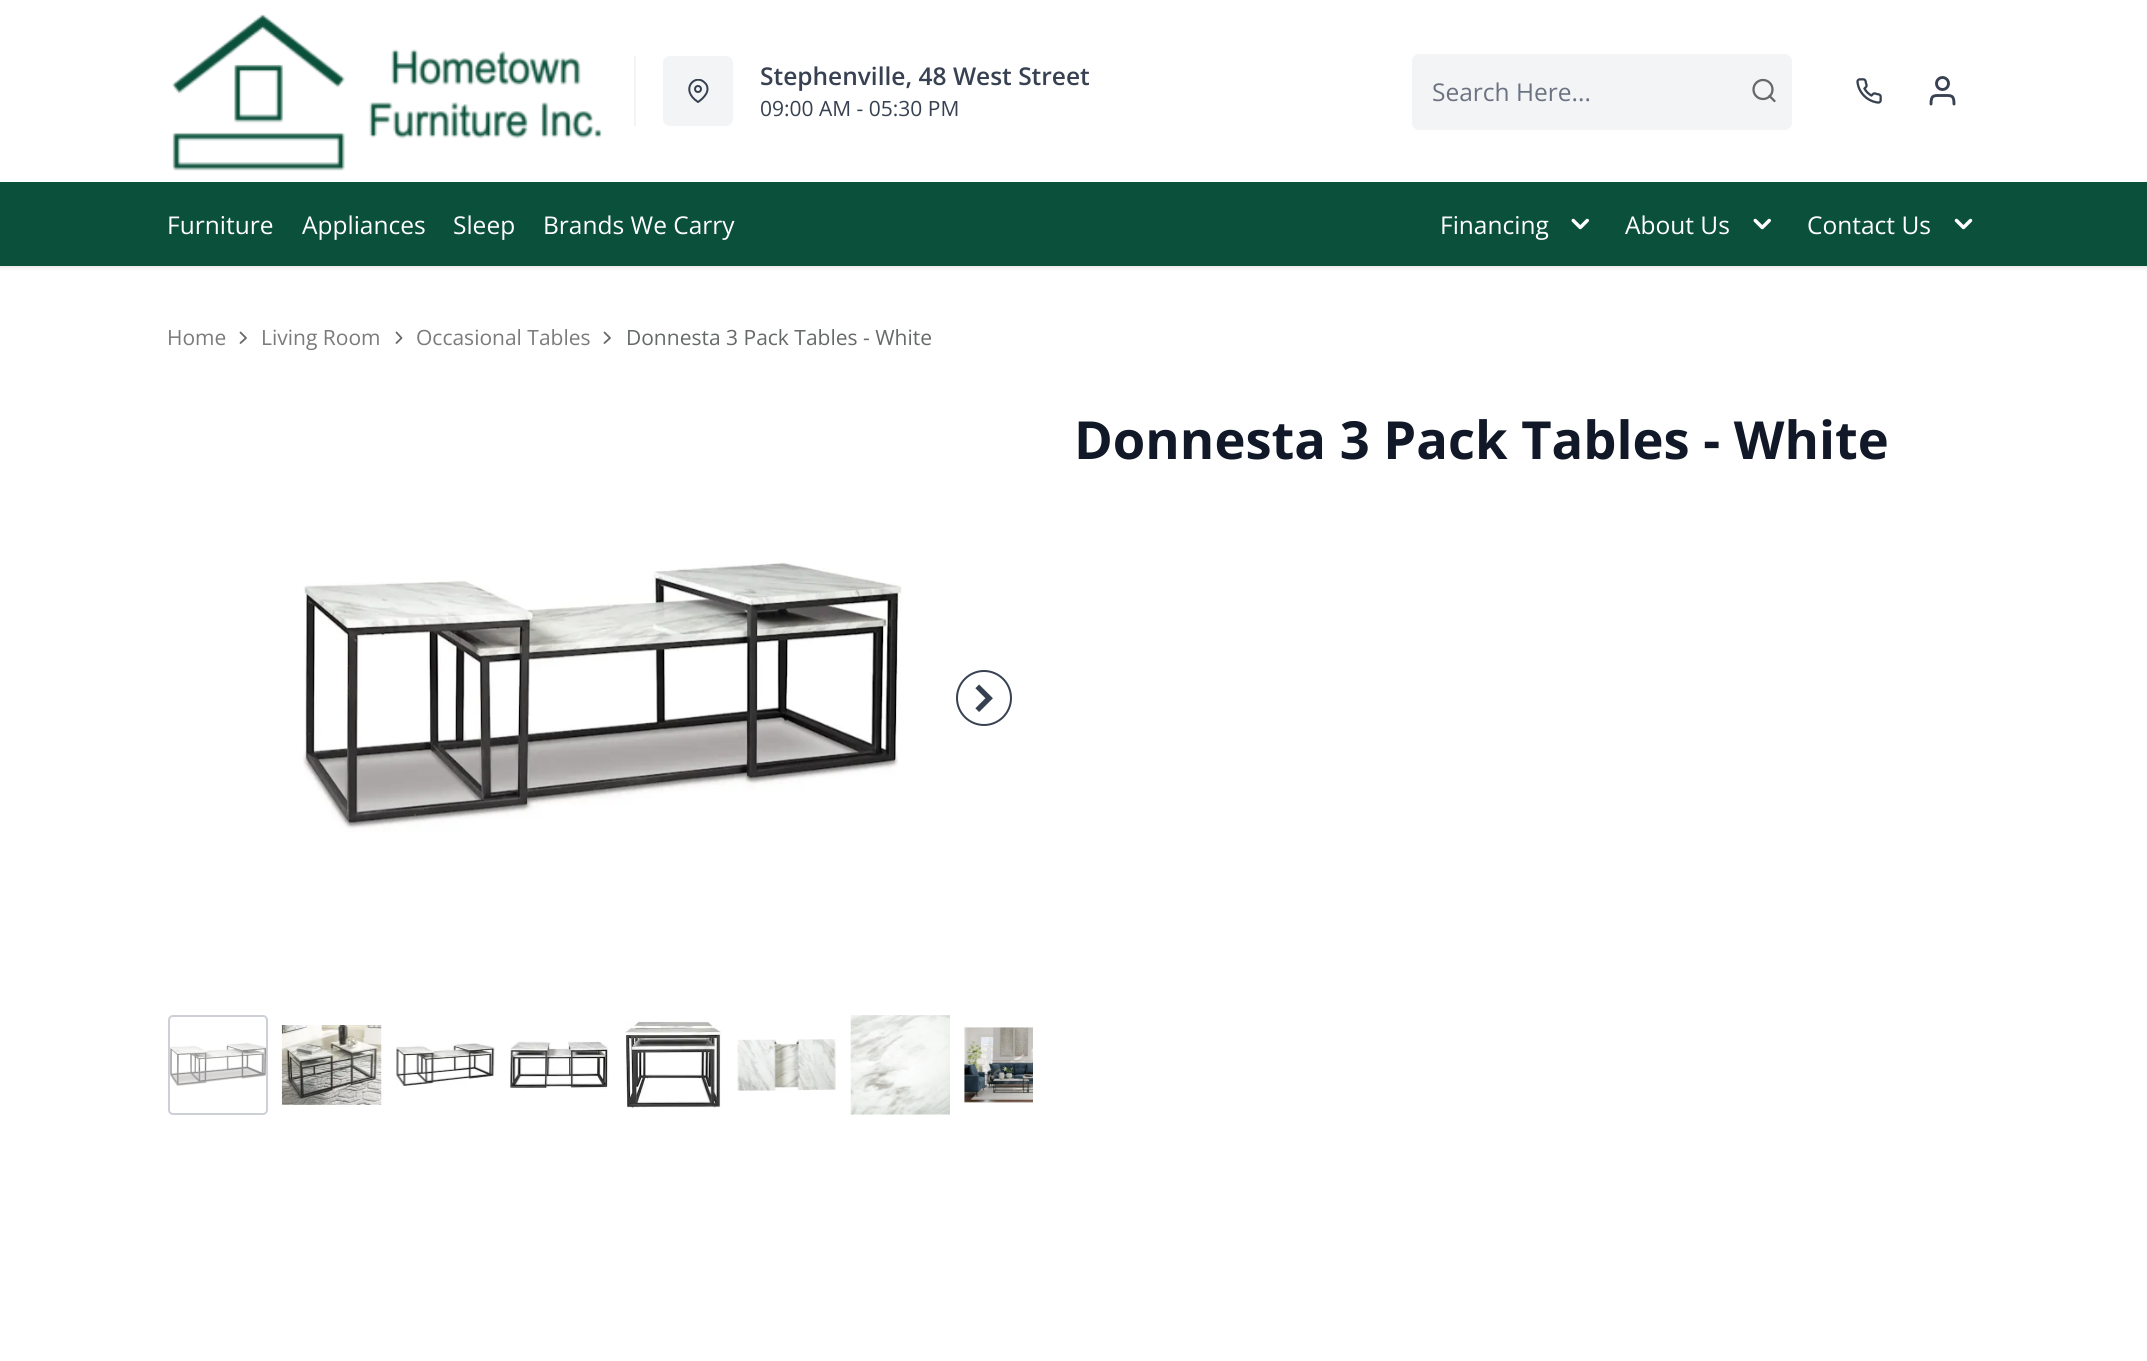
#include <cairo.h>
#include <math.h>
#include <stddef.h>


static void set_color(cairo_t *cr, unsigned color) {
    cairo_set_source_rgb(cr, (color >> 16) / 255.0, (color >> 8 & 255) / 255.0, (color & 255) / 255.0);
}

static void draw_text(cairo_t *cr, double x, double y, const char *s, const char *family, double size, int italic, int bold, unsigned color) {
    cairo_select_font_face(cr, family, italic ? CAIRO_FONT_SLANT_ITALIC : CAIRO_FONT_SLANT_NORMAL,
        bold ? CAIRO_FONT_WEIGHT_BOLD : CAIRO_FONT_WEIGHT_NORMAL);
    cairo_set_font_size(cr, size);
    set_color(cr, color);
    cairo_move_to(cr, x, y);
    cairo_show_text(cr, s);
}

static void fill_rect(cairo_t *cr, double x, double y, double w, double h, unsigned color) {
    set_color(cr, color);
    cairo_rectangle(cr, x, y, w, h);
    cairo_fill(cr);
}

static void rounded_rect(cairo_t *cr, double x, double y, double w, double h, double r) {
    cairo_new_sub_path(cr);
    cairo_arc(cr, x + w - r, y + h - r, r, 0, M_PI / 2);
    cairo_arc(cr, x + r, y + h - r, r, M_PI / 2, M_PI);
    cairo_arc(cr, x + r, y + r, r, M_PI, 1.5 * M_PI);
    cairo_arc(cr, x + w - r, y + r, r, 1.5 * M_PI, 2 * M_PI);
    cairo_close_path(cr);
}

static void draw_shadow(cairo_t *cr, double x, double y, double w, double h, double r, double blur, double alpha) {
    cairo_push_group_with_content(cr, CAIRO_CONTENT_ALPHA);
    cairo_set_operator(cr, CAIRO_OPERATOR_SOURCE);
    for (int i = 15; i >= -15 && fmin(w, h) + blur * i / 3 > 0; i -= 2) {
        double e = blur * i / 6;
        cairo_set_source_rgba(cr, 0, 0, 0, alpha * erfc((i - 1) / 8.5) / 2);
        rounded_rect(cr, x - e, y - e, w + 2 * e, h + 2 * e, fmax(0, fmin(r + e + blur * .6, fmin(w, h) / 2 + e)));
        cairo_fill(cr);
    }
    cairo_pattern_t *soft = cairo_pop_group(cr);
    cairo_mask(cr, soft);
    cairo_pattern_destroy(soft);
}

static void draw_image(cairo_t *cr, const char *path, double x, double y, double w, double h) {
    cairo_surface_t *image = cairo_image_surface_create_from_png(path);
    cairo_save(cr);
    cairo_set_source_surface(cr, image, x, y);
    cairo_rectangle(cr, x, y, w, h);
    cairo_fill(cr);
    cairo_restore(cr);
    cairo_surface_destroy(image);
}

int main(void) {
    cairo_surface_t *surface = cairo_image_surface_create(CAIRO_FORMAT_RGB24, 2147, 1361);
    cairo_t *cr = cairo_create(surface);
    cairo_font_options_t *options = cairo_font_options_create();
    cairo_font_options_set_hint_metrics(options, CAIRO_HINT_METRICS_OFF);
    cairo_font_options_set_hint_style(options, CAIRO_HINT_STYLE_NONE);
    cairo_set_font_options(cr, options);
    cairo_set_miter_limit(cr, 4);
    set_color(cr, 0xFFFFFF);
    cairo_paint(cr);
    set_color(cr, 0x000000);
    draw_shadow(cr, 0, 184, 2147, 84, 0, 2, 0.05);
    draw_shadow(cr, 0, 184, 2147, 84, 0, 2.5, 0.05);
    fill_rect(cr, 2, 181, 2143, 1, 0xFFFFFF);
    draw_image(cr, "assets/img1.png", 172, 14, 430, 157);
    fill_rect(cr, 634, 56, 2, 70, 0xF3F4F6);
    rounded_rect(cr, 663, 56, 70, 70, 7);
    cairo_fill(cr);
    cairo_save(cr);
    cairo_rectangle(cr, 686, 79, 25, 24);
    cairo_clip(cr);
    cairo_new_path(cr);
    cairo_move_to(cr, 707.5, 89);
    cairo_curve_to(cr, 707.5, 96, 698, 102, 698, 102);
    cairo_curve_to(cr, 679, 89.5, 695.5, 73, 704.5, 82.5);
    cairo_curve_to(cr, 706.5, 84, 707.5, 86.5, 707.5, 89);
    cairo_close_path(cr);
    set_color(cr, 0x374151);
    cairo_set_line_cap(cr, CAIRO_LINE_CAP_ROUND);
    cairo_set_line_join(cr, CAIRO_LINE_JOIN_ROUND);
    cairo_stroke(cr);
    cairo_restore(cr);
    cairo_arc(cr, 698, 89, 3, 0, 2 * M_PI);
    set_color(cr, 0x374151);
    cairo_stroke(cr);
    draw_text(cr, 760, 85, "Stephenville, 48 West Street", "Open Sans SemiBold", 24.5, 0, 0, 0x374151);
    draw_text(cr, 760, 116, "09:00 AM - 05:30 PM", "Open Sans", 21, 0, 0, 0x374151);
    set_color(cr, 0xF3F4F6);
    rounded_rect(cr, 1412, 54, 380, 76, 7);
    cairo_fill(cr);
    draw_text(cr, 1432, 101, "Search Here...", "Open Sans", 24.5, 0, 0, 0x6B7280);
    cairo_new_path(cr);
    cairo_arc(cr, 1763, 89.5, 9.5, 0, 2 * M_PI);
    set_color(cr, 0x656A67);
    cairo_set_line_width(cr, 2.3);
    cairo_stroke(cr);
    cairo_new_path(cr);
    cairo_move_to(cr, 1774.5, 101);
    cairo_line_to(cr, 1769.5, 96);
    cairo_set_line_cap(cr, CAIRO_LINE_CAP_ROUND);
    cairo_set_line_join(cr, CAIRO_LINE_JOIN_ROUND);
    cairo_stroke(cr);
    draw_image(cr, "assets/img2.png", 1856, 78, 26, 26);
    cairo_new_path(cr);
    cairo_move_to(cr, 1954, 104);
    cairo_curve_to(cr, 1954, 94.5, 1951, 95.5, 1942.5, 95.5);
    cairo_curve_to(cr, 1934, 95.5, 1931, 94.5, 1931, 104);
    set_color(cr, 0x374151);
    cairo_set_line_width(cr, 2.9);
    cairo_stroke(cr);
    cairo_arc(cr, 1942.5, 83.5, 6, 0, 2 * M_PI);
    cairo_set_line_cap(cr, CAIRO_LINE_CAP_BUTT);
    cairo_set_line_join(cr, CAIRO_LINE_JOIN_MITER);
    cairo_stroke(cr);
    fill_rect(cr, 0, 182, 2147, 84, 0x0A503A);
    draw_text(cr, 167, 234, "Furniture", "Open Sans", 24.5, 0, 0, 0xFFFFFF);
    draw_text(cr, 302, 234, "Appliances", "Open Sans", 24.5, 0, 0, 0xFFFFFF);
    draw_text(cr, 453, 234, "Sleep", "Open Sans", 24.5, 0, 0, 0xFFFFFF);
    draw_text(cr, 543, 234, "Brands We Carry", "Open Sans", 24.5, 0, 0, 0xFFFFFF);
    draw_text(cr, 1440, 234, "Financing", "Open Sans", 24.5, 0, 0, 0xFFFFFF);
    draw_image(cr, "assets/img3.png", 1571, 218, 18, 12);
    draw_text(cr, 1625, 234, "About Us", "Open Sans", 24.5, 0, 0, 0xFFFFFF);
    draw_image(cr, "assets/img3.png", 1753, 218, 18, 12);
    draw_text(cr, 1807, 234, "Contact Us", "Open Sans", 24.5, 0, 0, 0xFFFFFF);
    draw_image(cr, "assets/img4.png", 1954, 218, 19, 12);
    draw_text(cr, 167, 345, "Home", "Open Sans", 21, 0, 0, 0x7B7B7B);
    cairo_new_path(cr);
    cairo_move_to(cr, 240.5, 343);
    cairo_line_to(cr, 246, 338);
    cairo_line_to(cr, 240.5, 332.5);
    set_color(cr, 0x656A67);
    cairo_set_line_width(cr, 1.8);
    cairo_set_line_cap(cr, CAIRO_LINE_CAP_ROUND);
    cairo_set_line_join(cr, CAIRO_LINE_JOIN_ROUND);
    cairo_stroke(cr);
    draw_text(cr, 261, 345, "Living Room", "Open Sans", 21, 0, 0, 0x7B7B7B);
    cairo_new_path(cr);
    cairo_move_to(cr, 396.5, 343);
    cairo_line_to(cr, 401.5, 338);
    cairo_line_to(cr, 396.5, 332.5);
    set_color(cr, 0x656A67);
    cairo_stroke(cr);
    draw_text(cr, 416, 345, "Occasional Tables", "Open Sans", 21, 0, 0, 0x7B7B7B);
    cairo_new_path(cr);
    cairo_move_to(cr, 604.5, 343);
    cairo_line_to(cr, 610, 338);
    cairo_line_to(cr, 604.5, 332.5);
    set_color(cr, 0x656A67);
    cairo_stroke(cr);
    draw_text(cr, 626, 345, "Donnesta 3 Pack Tables - White", "Open Sans", 21, 0, 0, 0x656A67);
    draw_text(cr, 1074, 459, "Donnesta 3 Pack Tables - White", "Open Sans", 52.5, 0, 1, 0x111827);
    draw_image(cr, "assets/img5.png", 303, 561, 599, 271);
    cairo_arc(cr, 984, 698, 27, 0, 2 * M_PI);
    set_color(cr, 0x374151);
    cairo_set_line_width(cr, 2);
    cairo_set_line_cap(cr, CAIRO_LINE_CAP_BUTT);
    cairo_set_line_join(cr, CAIRO_LINE_JOIN_MITER);
    cairo_stroke(cr);
    draw_image(cr, "assets/img6.png", 975, 684, 18, 28);
    draw_image(cr, "assets/img7.png", 170, 1042, 97, 45);
    cairo_set_source_rgba(cr, 1, 1, 1, 0.5);
    rounded_rect(cr, 168, 1015, 100, 100, 5);
    cairo_fill(cr);
    rounded_rect(cr, 169, 1016, 98, 98, 4);
    cairo_set_source_rgba(cr, 0.612, 0.639, 0.686, 0.5);
    cairo_stroke(cr);
    draw_image(cr, "assets/img8.png", 281, 1024, 101, 83);
    draw_image(cr, "assets/img9.png", 396, 1043, 99, 43);
    draw_image(cr, "assets/img10.png", 510, 1041, 99, 48);
    draw_image(cr, "assets/img11.png", 625, 1021, 96, 87);
    draw_image(cr, "assets/img12.png", 737, 1039, 99, 52);
    draw_image(cr, "assets/img13.png", 850, 1015, 100, 100);
    draw_image(cr, "assets/img14.png", 964, 1027, 69, 76);
    cairo_surface_write_to_png(surface, "output.png");
    cairo_font_options_destroy(options);
    cairo_destroy(cr);
    cairo_surface_destroy(surface);
    return 0;
}
